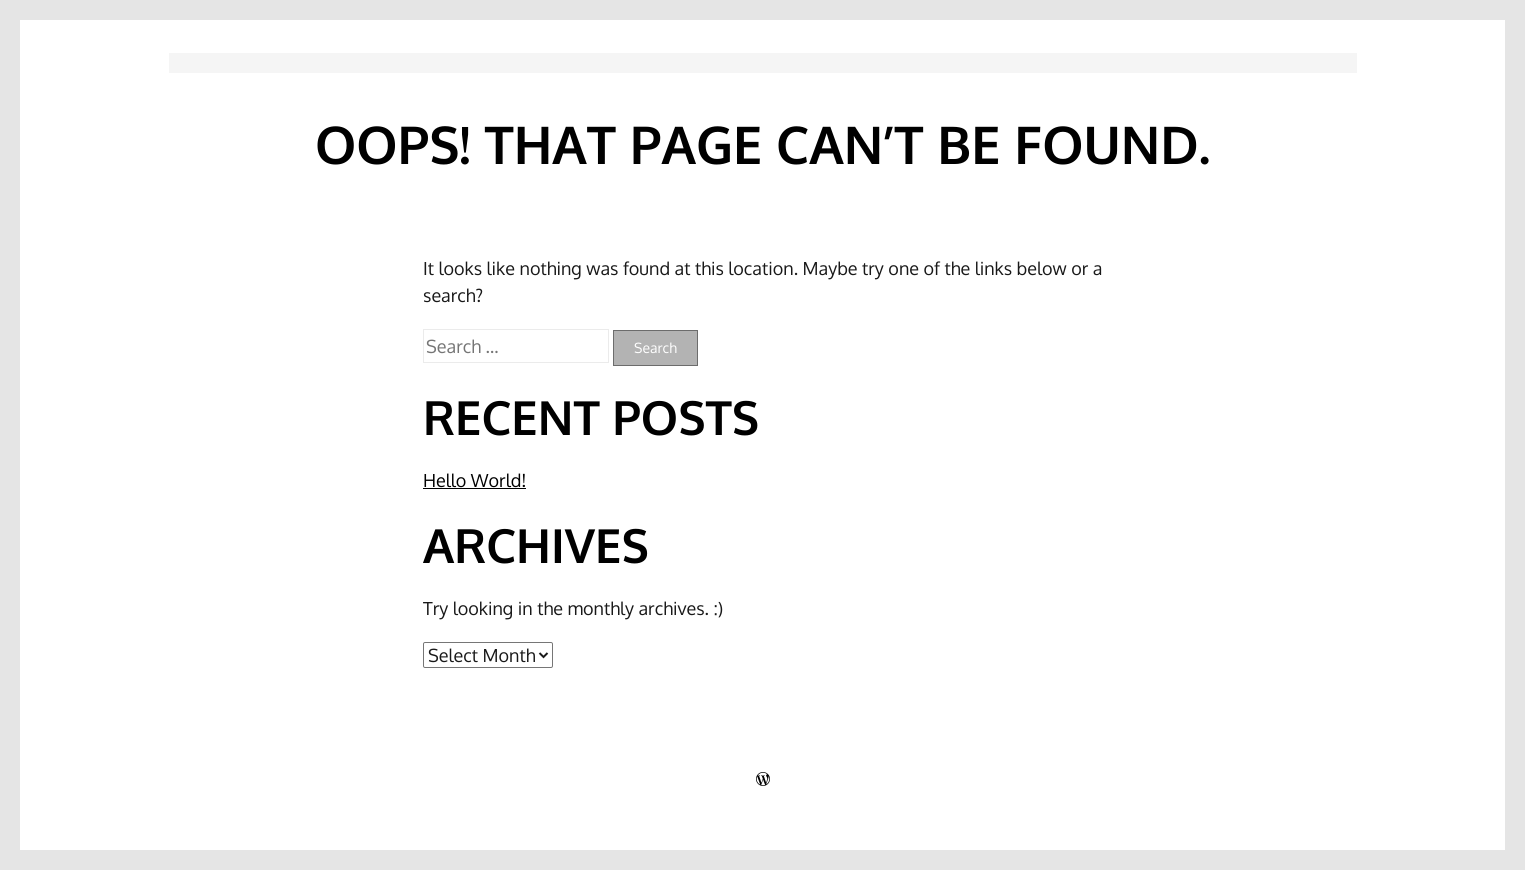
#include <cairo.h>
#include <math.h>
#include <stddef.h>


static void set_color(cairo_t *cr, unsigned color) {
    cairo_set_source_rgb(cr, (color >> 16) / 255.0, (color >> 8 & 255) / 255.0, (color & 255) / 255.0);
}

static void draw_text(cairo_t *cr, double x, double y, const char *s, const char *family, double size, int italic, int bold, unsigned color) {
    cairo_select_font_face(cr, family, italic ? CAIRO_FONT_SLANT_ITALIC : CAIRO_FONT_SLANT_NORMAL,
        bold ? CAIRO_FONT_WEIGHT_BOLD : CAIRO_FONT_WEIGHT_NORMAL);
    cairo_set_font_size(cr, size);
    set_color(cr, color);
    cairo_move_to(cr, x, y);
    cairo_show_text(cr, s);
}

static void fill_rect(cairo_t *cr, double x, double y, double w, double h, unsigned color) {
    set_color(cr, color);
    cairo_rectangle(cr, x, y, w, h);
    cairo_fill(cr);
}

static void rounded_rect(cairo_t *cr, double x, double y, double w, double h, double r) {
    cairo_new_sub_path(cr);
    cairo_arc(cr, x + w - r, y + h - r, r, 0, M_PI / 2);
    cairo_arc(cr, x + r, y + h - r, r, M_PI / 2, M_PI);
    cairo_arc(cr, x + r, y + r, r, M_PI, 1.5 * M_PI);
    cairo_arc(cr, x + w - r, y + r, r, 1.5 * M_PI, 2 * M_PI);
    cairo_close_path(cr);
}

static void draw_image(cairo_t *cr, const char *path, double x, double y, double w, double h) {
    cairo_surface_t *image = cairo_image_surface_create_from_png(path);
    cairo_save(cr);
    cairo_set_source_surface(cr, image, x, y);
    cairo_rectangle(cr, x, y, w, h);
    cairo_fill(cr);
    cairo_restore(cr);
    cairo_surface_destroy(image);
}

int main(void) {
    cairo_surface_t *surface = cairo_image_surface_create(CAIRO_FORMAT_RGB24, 1525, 870);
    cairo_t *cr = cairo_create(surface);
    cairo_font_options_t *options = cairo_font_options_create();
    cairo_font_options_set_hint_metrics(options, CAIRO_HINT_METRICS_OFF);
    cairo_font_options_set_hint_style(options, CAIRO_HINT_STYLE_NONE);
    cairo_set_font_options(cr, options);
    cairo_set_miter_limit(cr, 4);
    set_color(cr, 0xFFFFFF);
    cairo_paint(cr);
    fill_rect(cr, 1505, 20, 20, 830, 0xE5E5E5);
    fill_rect(cr, 0, 20, 20, 830, 0xE5E5E5);
    fill_rect(cr, 0, 0, 1525, 20, 0xE5E5E5);
    fill_rect(cr, 169, 53, 1188, 20, 0xF5F5F5);
    draw_text(cr, 315, 164, "OOPS! THAT PAGE CAN’T BE FOUND.", "Oxygen", 52, 0, 1, 0x000000);
    draw_text(cr, 423, 275, "It looks like nothing was found at this location. Maybe try one of the links below or a", "Oxygen", 18, 0, 0, 0x191919);
    draw_text(cr, 423, 302, "search?", "Oxygen", 18, 0, 0, 0x191919);
    cairo_rectangle(cr, 423.5, 329.5, 185, 33);
    set_color(cr, 0xEBEBEB);
    cairo_set_line_width(cr, 1);
    cairo_stroke(cr);
    draw_text(cr, 426, 353, "Search …", "Oxygen", 18, 0, 0, 0x757575);
    set_color(cr, 0xB3B3B3);
    cairo_rectangle(cr, 613.5, 330.5, 84, 35);
    cairo_fill_preserve(cr);
    set_color(cr, 0x6C6C6C);
    cairo_stroke(cr);
    draw_text(cr, 634, 353, "Search", "Oxygen", 14, 0, 0, 0xFFFFFF);
    draw_text(cr, 423, 435, "RECENT POSTS", "Oxygen", 47, 0, 1, 0x000000);
    draw_text(cr, 423, 487, "Hello World!", "Oxygen", 18, 0, 0, 0x000000);
    fill_rect(cr, 423, 488, 103, 1, 0x000000);
    draw_text(cr, 423, 563, "ARCHIVES", "Oxygen", 47, 0, 1, 0x000000);
    draw_text(cr, 423, 615, "Try looking in the monthly archives. :)", "Oxygen", 18, 0, 0, 0x191919);
    rounded_rect(cr, 423.5, 642.5, 129, 25, 1.5);
    set_color(cr, 0x767676);
    cairo_stroke(cr);
    cairo_new_path(cr);
    cairo_move_to(cr, 539.5, 653);
    cairo_line_to(cr, 543.5, 657);
    cairo_line_to(cr, 547.5, 653);
    set_color(cr, 0x191919);
    cairo_set_line_width(cr, 2);
    cairo_stroke(cr);
    draw_text(cr, 428, 662, "Select Month", "Oxygen", 18, 0, 0, 0x191919);
    draw_image(cr, "assets/img1.png", 756, 772, 14, 14);
    fill_rect(cr, 0, 850, 1525, 20, 0xE5E5E5);
    cairo_surface_write_to_png(surface, "output.png");
    cairo_font_options_destroy(options);
    cairo_destroy(cr);
    cairo_surface_destroy(surface);
    return 0;
}
